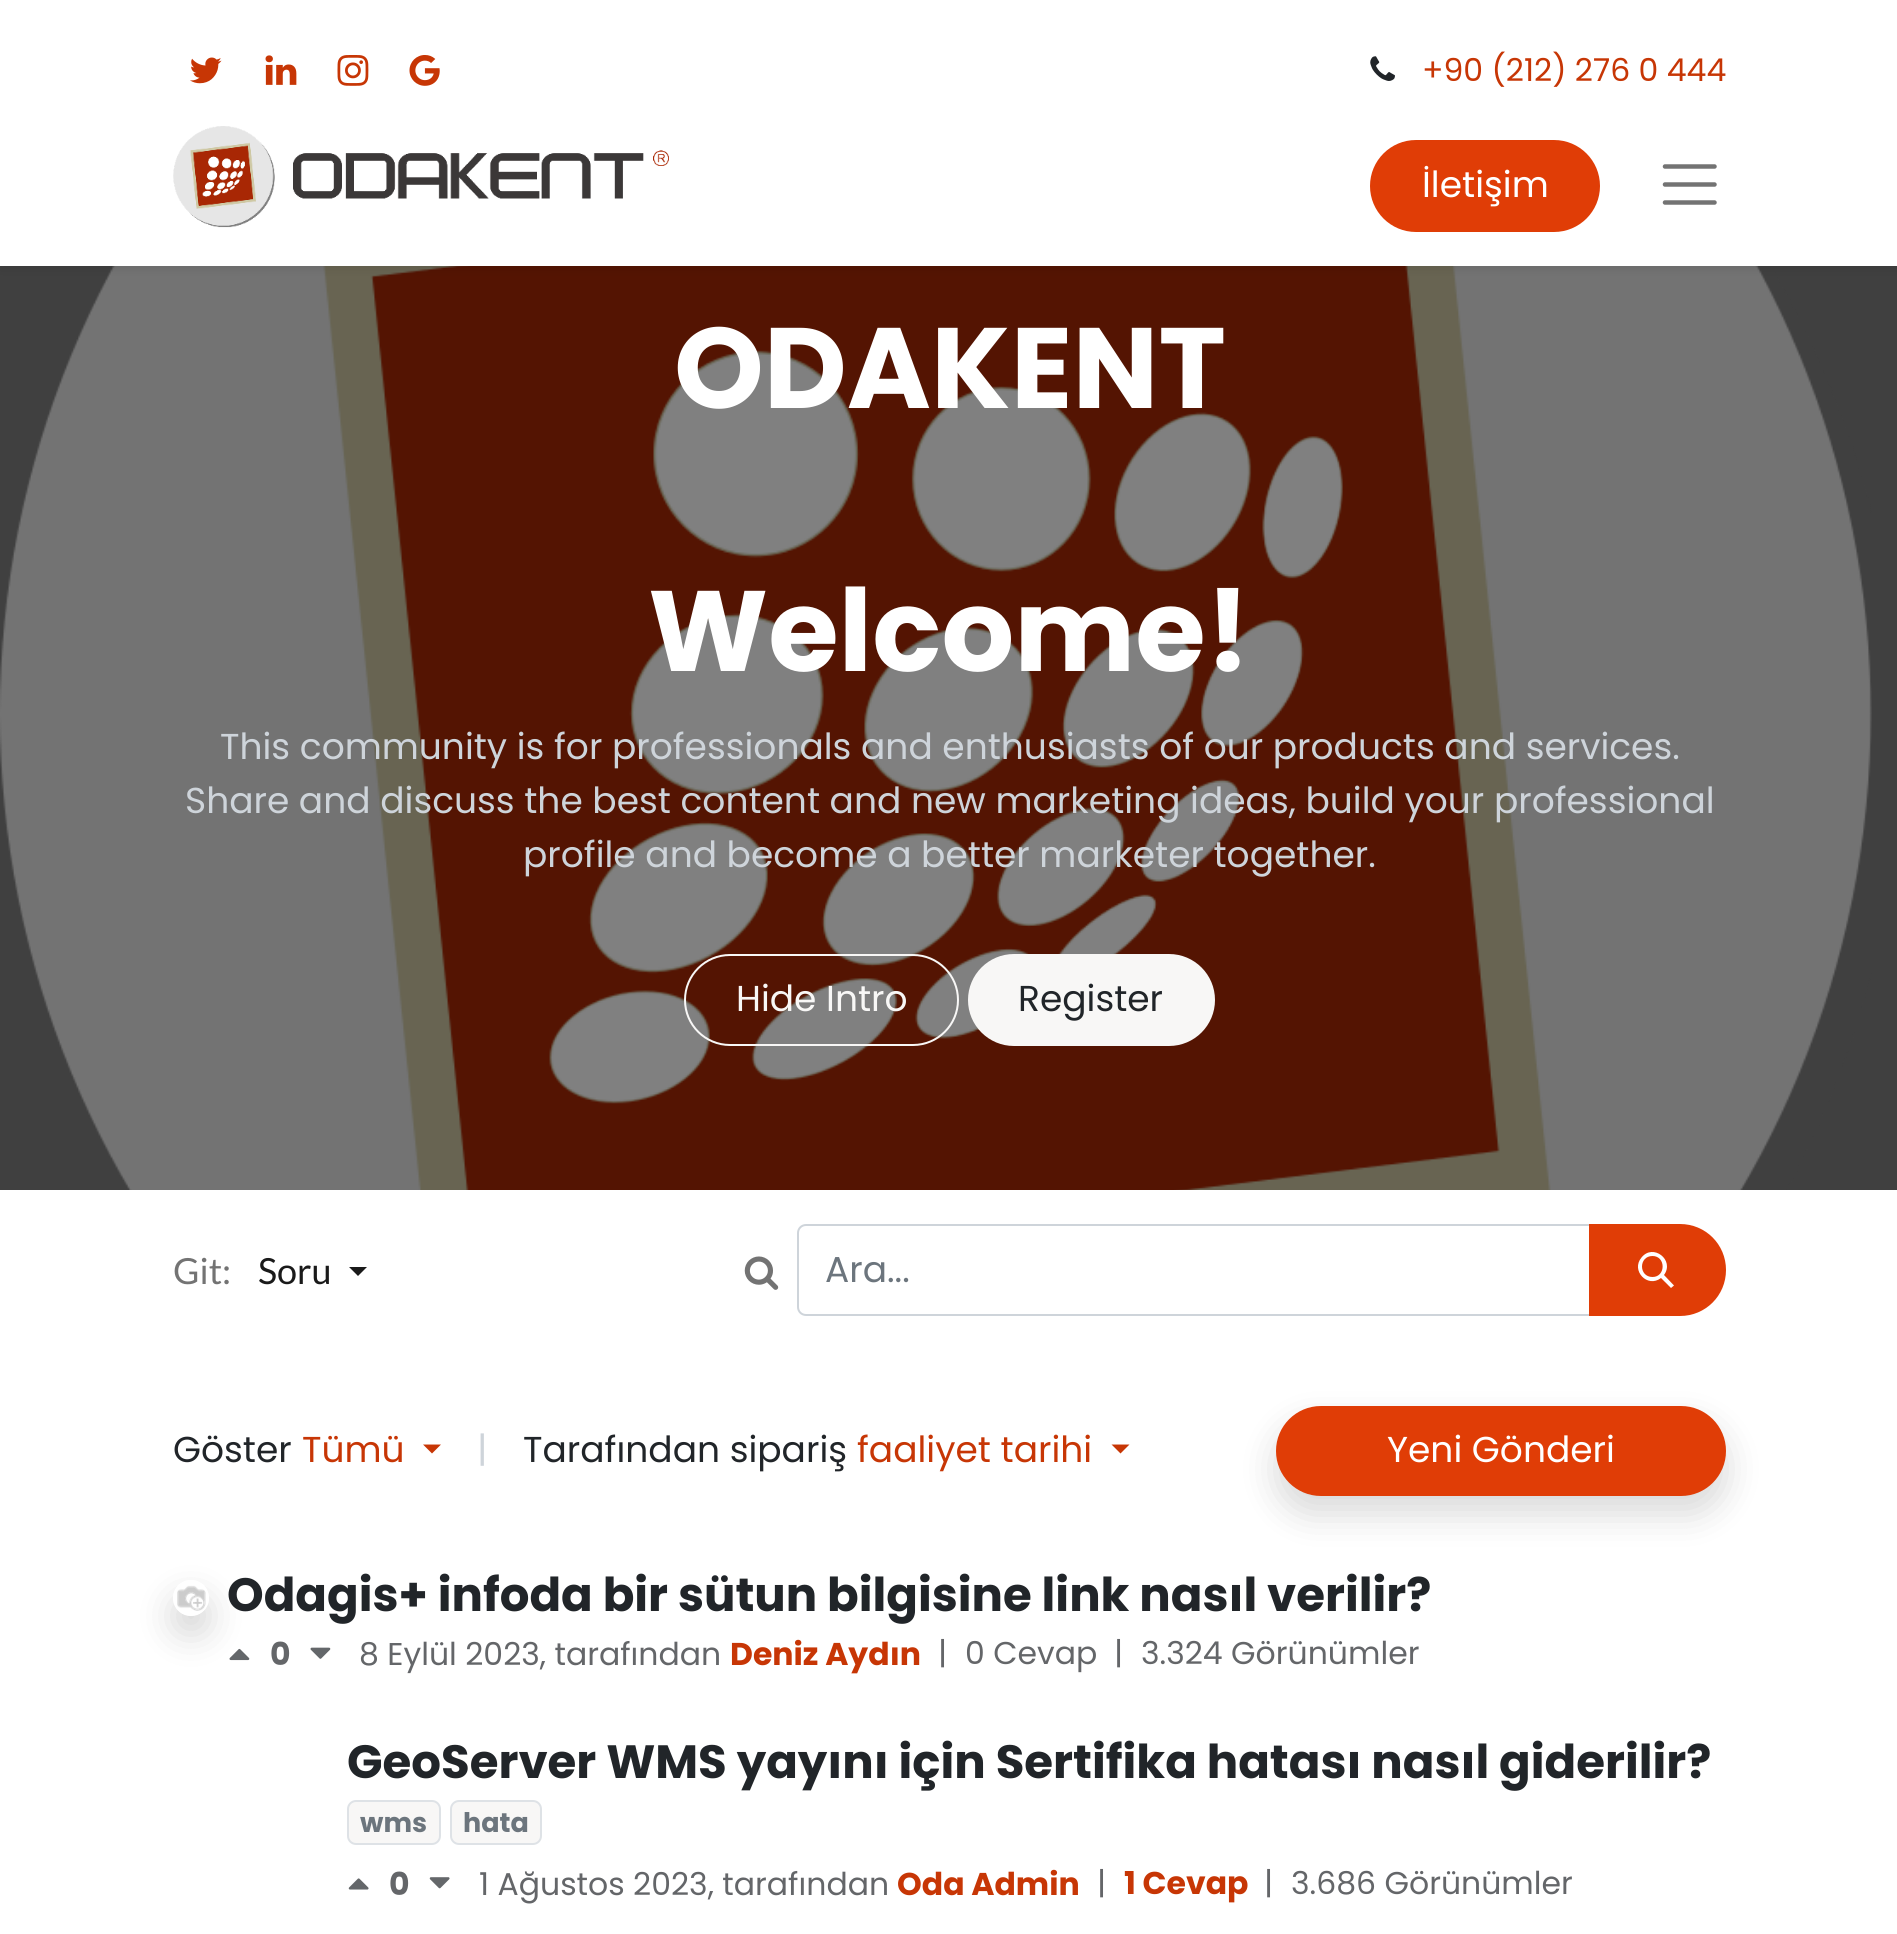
#include <cairo.h>
#include <math.h>
#include <stddef.h>


static void set_color(cairo_t *cr, unsigned color) {
    cairo_set_source_rgb(cr, (color >> 16) / 255.0, (color >> 8 & 255) / 255.0, (color & 255) / 255.0);
}

static void draw_text(cairo_t *cr, double x, double y, const char *s, const char *family, double size, int italic, int bold, unsigned color) {
    cairo_select_font_face(cr, family, italic ? CAIRO_FONT_SLANT_ITALIC : CAIRO_FONT_SLANT_NORMAL,
        bold ? CAIRO_FONT_WEIGHT_BOLD : CAIRO_FONT_WEIGHT_NORMAL);
    cairo_set_font_size(cr, size);
    set_color(cr, color);
    cairo_move_to(cr, x, y);
    cairo_show_text(cr, s);
}

static void fill_rect(cairo_t *cr, double x, double y, double w, double h, unsigned color) {
    set_color(cr, color);
    cairo_rectangle(cr, x, y, w, h);
    cairo_fill(cr);
}

static void rounded_rect(cairo_t *cr, double x, double y, double w, double h, double r) {
    cairo_new_sub_path(cr);
    cairo_arc(cr, x + w - r, y + h - r, r, 0, M_PI / 2);
    cairo_arc(cr, x + r, y + h - r, r, M_PI / 2, M_PI);
    cairo_arc(cr, x + r, y + r, r, M_PI, 1.5 * M_PI);
    cairo_arc(cr, x + w - r, y + r, r, 1.5 * M_PI, 2 * M_PI);
    cairo_close_path(cr);
}

static void draw_shadow(cairo_t *cr, double x, double y, double w, double h, double r, double blur, double alpha) {
    cairo_push_group_with_content(cr, CAIRO_CONTENT_ALPHA);
    cairo_set_operator(cr, CAIRO_OPERATOR_SOURCE);
    for (int i = 15; i >= -15 && fmin(w, h) + blur * i / 3 > 0; i -= 2) {
        double e = blur * i / 6;
        cairo_set_source_rgba(cr, 0, 0, 0, alpha * erfc((i - 1) / 8.5) / 2);
        rounded_rect(cr, x - e, y - e, w + 2 * e, h + 2 * e, fmax(0, fmin(r + e + blur * .6, fmin(w, h) / 2 + e)));
        cairo_fill(cr);
    }
    cairo_pattern_t *soft = cairo_pop_group(cr);
    cairo_mask(cr, soft);
    cairo_pattern_destroy(soft);
}

static void draw_image(cairo_t *cr, const char *path, double x, double y, double w, double h) {
    cairo_surface_t *image = cairo_image_surface_create_from_png(path);
    cairo_save(cr);
    cairo_set_source_surface(cr, image, x, y);
    cairo_rectangle(cr, x, y, w, h);
    cairo_fill(cr);
    cairo_restore(cr);
    cairo_surface_destroy(image);
}

int main(void) {
    cairo_surface_t *surface = cairo_image_surface_create(CAIRO_FORMAT_RGB24, 1897, 1934);
    cairo_t *cr = cairo_create(surface);
    cairo_font_options_t *options = cairo_font_options_create();
    cairo_font_options_set_hint_metrics(options, CAIRO_HINT_METRICS_OFF);
    cairo_font_options_set_hint_style(options, CAIRO_HINT_STYLE_NONE);
    cairo_set_font_options(cr, options);
    cairo_set_miter_limit(cr, 4);
    set_color(cr, 0xFFFFFF);
    cairo_paint(cr);
    fill_rect(cr, 0, 266, 1897, 924, 0x404040);
    draw_image(cr, "assets/img7.png", 0, 266, 1872, 924);
    set_color(cr, 0x000000);
    draw_shadow(cr, 0, 5, 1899, 265, 0, 4.5, 0.07);
    fill_rect(cr, 0, 0, 1897, 266, 0xFFFFFF);
    draw_image(cr, "assets/img1.png", 190, 57, 32, 27);
    draw_image(cr, "assets/img2.png", 265, 55, 32, 30);
    draw_image(cr, "assets/img3.png", 337, 55, 32, 31);
    draw_image(cr, "assets/img4.png", 409, 55, 31, 31);
    draw_image(cr, "assets/img5.png", 1370, 56, 25, 25);
    draw_text(cr, 1422, 81, "+90 (212) 276 0 444", "Poppins", 31.5, 0, 0, 0xC73605);
    draw_image(cr, "assets/img6.png", 173, 126, 496, 102);
    set_color(cr, 0xE03D06);
    rounded_rect(cr, 1371, 141, 228, 90, 45);
    cairo_fill_preserve(cr);
    cairo_stroke(cr);
    draw_text(cr, 1422, 197, "İletişim", "Poppins", 36, 0, 0, 0xFFFFFF);
    cairo_new_path(cr);
    cairo_move_to(cr, 1665, 166.5);
    cairo_line_to(cr, 1714.5, 166.5);
    cairo_move_to(cr, 1665, 184.5);
    cairo_line_to(cr, 1714.5, 184.5);
    cairo_move_to(cr, 1665, 202.5);
    cairo_line_to(cr, 1714.5, 202.5);
    set_color(cr, 0x737373);
    cairo_set_line_width(cr, 4.5);
    cairo_set_line_cap(cr, CAIRO_LINE_CAP_ROUND);
    cairo_stroke(cr);
    draw_text(cr, 674, 408, "ODAKENT", "Poppins", 114.25, 0, 1, 0xFFFFFF);
    draw_text(cr, 648, 671, "Welcome!", "Poppins", 114.25, 0, 1, 0xFFFFFF);
    draw_text(cr, 220, 759, "This community is for professionals and enthusiasts of our products and services.", "Poppins", 36, 0, 0, 0xCED4DA);
    draw_text(cr, 185, 813, "Share and discuss the best content and new marketing ideas, build your professional", "Poppins", 36, 0, 0, 0xCED4DA);
    draw_text(cr, 523, 867, "profile and become a better marketer together.", "Poppins", 36, 0, 0, 0xCED4DA);
    rounded_rect(cr, 685, 955, 273, 90, 45);
    set_color(cr, 0xF8F7F6);
    cairo_set_line_width(cr, 2);
    cairo_set_line_cap(cr, CAIRO_LINE_CAP_BUTT);
    cairo_stroke(cr);
    draw_text(cr, 736, 1011, "Hide Intro", "Poppins", 36, 0, 0, 0xF8F7F6);
    rounded_rect(cr, 969, 955, 245, 90, 45);
    cairo_fill_preserve(cr);
    cairo_stroke(cr);
    draw_text(cr, 1018, 1011, "Register", "Poppins", 36, 0, 0, 0x212529);
    draw_text(cr, 173, 1284, "Git:", "Lato", 36, 0, 0, 0x737373);
    draw_text(cr, 258, 1284, "Soru", "Lato", 36, 0, 0, 0x1A1A1A);
    cairo_new_path(cr);
    cairo_move_to(cr, 349, 1267);
    cairo_line_to(cr, 367, 1267);
    cairo_line_to(cr, 358, 1276);
    cairo_close_path(cr);
    cairo_fill(cr);
    draw_image(cr, "assets/img8.png", 744, 1256, 35, 34);
    cairo_new_path(cr);
    cairo_move_to(cr, 806, 1225);
    cairo_line_to(cr, 1590, 1225);
    cairo_line_to(cr, 1590, 1315);
    cairo_line_to(cr, 806, 1315);
    cairo_curve_to(cr, 801.5, 1315, 798, 1311.5, 798, 1307);
    cairo_line_to(cr, 798, 1233);
    cairo_curve_to(cr, 798, 1228.5, 801.5, 1225, 806, 1225);
    cairo_close_path(cr);
    set_color(cr, 0xCED4DA);
    cairo_stroke(cr);
    draw_text(cr, 825, 1282, "Ara...", "Poppins", 36, 0, 0, 0x6C757D);
    set_color(cr, 0xE03D06);
    cairo_new_path(cr);
    cairo_move_to(cr, 1590, 1225);
    cairo_line_to(cr, 1680, 1225);
    cairo_curve_to(cr, 1705, 1225, 1725, 1245, 1725, 1270);
    cairo_curve_to(cr, 1725, 1295, 1705, 1315, 1680, 1315);
    cairo_line_to(cr, 1590, 1315);
    cairo_close_path(cr);
    cairo_fill_preserve(cr);
    cairo_stroke(cr);
    set_color(cr, 0xFFFFFF);
    cairo_new_path(cr);
    cairo_move_to(cr, 1641.5, 1257.5);
    cairo_curve_to(cr, 1653, 1243, 1675, 1260, 1664, 1275);
    cairo_line_to(cr, 1674, 1285.5);
    cairo_line_to(cr, 1671, 1288);
    cairo_line_to(cr, 1661, 1278);
    cairo_curve_to(cr, 1647.5, 1288.5, 1630.5, 1270.5, 1641.5, 1257.5);
    cairo_close_path(cr);
    cairo_move_to(cr, 1652.5, 1256);
    cairo_curve_to(cr, 1638.5, 1256, 1638.5, 1277, 1652.5, 1277);
    cairo_curve_to(cr, 1666, 1277, 1666, 1256, 1652.5, 1256);
    cairo_close_path(cr);
    cairo_fill(cr);
    draw_text(cr, 173, 1462, "Göster", "Poppins", 36, 0, 0, 0x212529);
    draw_text(cr, 302, 1462, "Tümü", "Poppins", 36, 0, 0, 0xC73605);
    cairo_new_path(cr);
    cairo_move_to(cr, 423, 1444.5);
    cairo_line_to(cr, 441, 1444.5);
    cairo_line_to(cr, 432, 1453.5);
    cairo_close_path(cr);
    cairo_fill(cr);
    draw_text(cr, 477, 1462, "|", "Poppins", 36, 0, 0, 0xCED4DA);
    draw_text(cr, 523, 1462, "Tarafından sipariş", "Poppins", 36, 0, 0, 0x212529);
    draw_text(cr, 857, 1462, "faaliyet tarihi", "Poppins", 36, 0, 0, 0xC73605);
    cairo_new_path(cr);
    cairo_move_to(cr, 1111.5, 1444.5);
    cairo_line_to(cr, 1129.5, 1444.5);
    cairo_line_to(cr, 1120.5, 1453.5);
    cairo_close_path(cr);
    cairo_fill(cr);
    set_color(cr, 0x000000);
    draw_shadow(cr, 1276, 1424, 450, 90, 45, 18, 0.15);
    set_color(cr, 0xE03D06);
    rounded_rect(cr, 1277, 1407, 448, 88, 44);
    cairo_fill_preserve(cr);
    cairo_stroke(cr);
    draw_text(cr, 1387, 1462, "Yeni Gönderi", "Poppins", 36, 0, 0, 0xFFFFFF);
    draw_image(cr, "assets/img10.png", 229, 1648, 21, 13);
    cairo_save(cr);
    cairo_set_fill_rule(cr, CAIRO_FILL_RULE_EVEN_ODD);
    cairo_new_path(cr);
    cairo_move_to(cr, 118, 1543);
    cairo_line_to(cr, 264, 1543);
    cairo_line_to(cr, 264, 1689);
    cairo_line_to(cr, 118, 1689);
    cairo_close_path(cr);
    cairo_move_to(cr, 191, 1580);
    cairo_curve_to(cr, 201, 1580, 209, 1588, 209, 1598);
    cairo_curve_to(cr, 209, 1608, 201, 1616, 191, 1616);
    cairo_curve_to(cr, 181, 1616, 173, 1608, 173, 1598);
    cairo_curve_to(cr, 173, 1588, 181, 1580, 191, 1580);
    cairo_close_path(cr);
    cairo_clip(cr);
    set_color(cr, 0x000000);
    draw_shadow(cr, 173, 1598, 36, 36, 18, 18, 0.15);
    cairo_restore(cr);
    draw_image(cr, "assets/img9.png", 177, 1585, 29, 26);
    draw_text(cr, 227, 1611, "Odagis+ infoda bir sütun bilgisine link nasıl verilir?", "Poppins", 46.65, 0, 1, 0x212529);
    draw_text(cr, 270, 1665, "0", "Poppins", 31.5, 0, 1, 0x646669);
    draw_image(cr, "assets/img11.png", 310, 1647, 21, 12);
    draw_text(cr, 359, 1665, "8 Eylül 2023, tarafından", "Poppins", 31.5, 0, 0, 0x646669);
    draw_text(cr, 730, 1665, "Deniz Aydın", "Poppins", 31.5, 0, 1, 0xC73605);
    draw_text(cr, 938, 1664, "|", "Poppins", 31.5, 0, 0, 0x646669);
    draw_text(cr, 965, 1664, "0 Cevap", "Poppins", 31.5, 0, 0, 0x646669);
    draw_text(cr, 1114, 1664, "|", "Poppins", 31.5, 0, 0, 0x646669);
    draw_text(cr, 1141, 1664, "3.324 Görünümler", "Poppins", 31.5, 0, 0, 0x646669);
    draw_text(cr, 347, 1778, "GeoServer WMS yayını için Sertifika hatası nasıl giderilir?", "Poppins", 46.65, 0, 1, 0x212529);
    set_color(cr, 0xF8F7F6);
    rounded_rect(cr, 348, 1801, 92, 43, 8);
    cairo_fill_preserve(cr);
    set_color(cr, 0xDEE2E6);
    cairo_stroke(cr);
    draw_text(cr, 360, 1832, "wms", "Poppins", 27, 0, 1, 0x6C757D);
    set_color(cr, 0xF8F7F6);
    rounded_rect(cr, 451, 1801, 90, 43, 8);
    cairo_fill_preserve(cr);
    set_color(cr, 0xDEE2E6);
    cairo_stroke(cr);
    draw_text(cr, 463, 1832, "hata", "Poppins", 27, 0, 1, 0x6C757D);
    draw_image(cr, "assets/img12.png", 348, 1878, 21, 12);
    draw_text(cr, 389, 1895, "0", "Poppins", 31.5, 0, 1, 0x646669);
    draw_image(cr, "assets/img13.png", 429, 1877, 21, 12);
    draw_text(cr, 479, 1895, "1 Ağustos 2023, tarafından", "Poppins", 31.5, 0, 0, 0x646669);
    draw_text(cr, 897, 1895, "Oda Admin", "Poppins", 31.5, 0, 1, 0xC73605);
    draw_text(cr, 1097, 1894, "|", "Poppins", 31.5, 0, 0, 0x646669);
    draw_text(cr, 1124, 1894, "1 Cevap", "Poppins", 31.5, 0, 1, 0xC73605);
    draw_text(cr, 1264, 1894, "|", "Poppins", 31.5, 0, 0, 0x646669);
    draw_text(cr, 1291, 1894, "3.686 Görünümler", "Poppins", 31.5, 0, 0, 0x646669);
    cairo_surface_write_to_png(surface, "output.png");
    cairo_font_options_destroy(options);
    cairo_destroy(cr);
    cairo_surface_destroy(surface);
    return 0;
}
